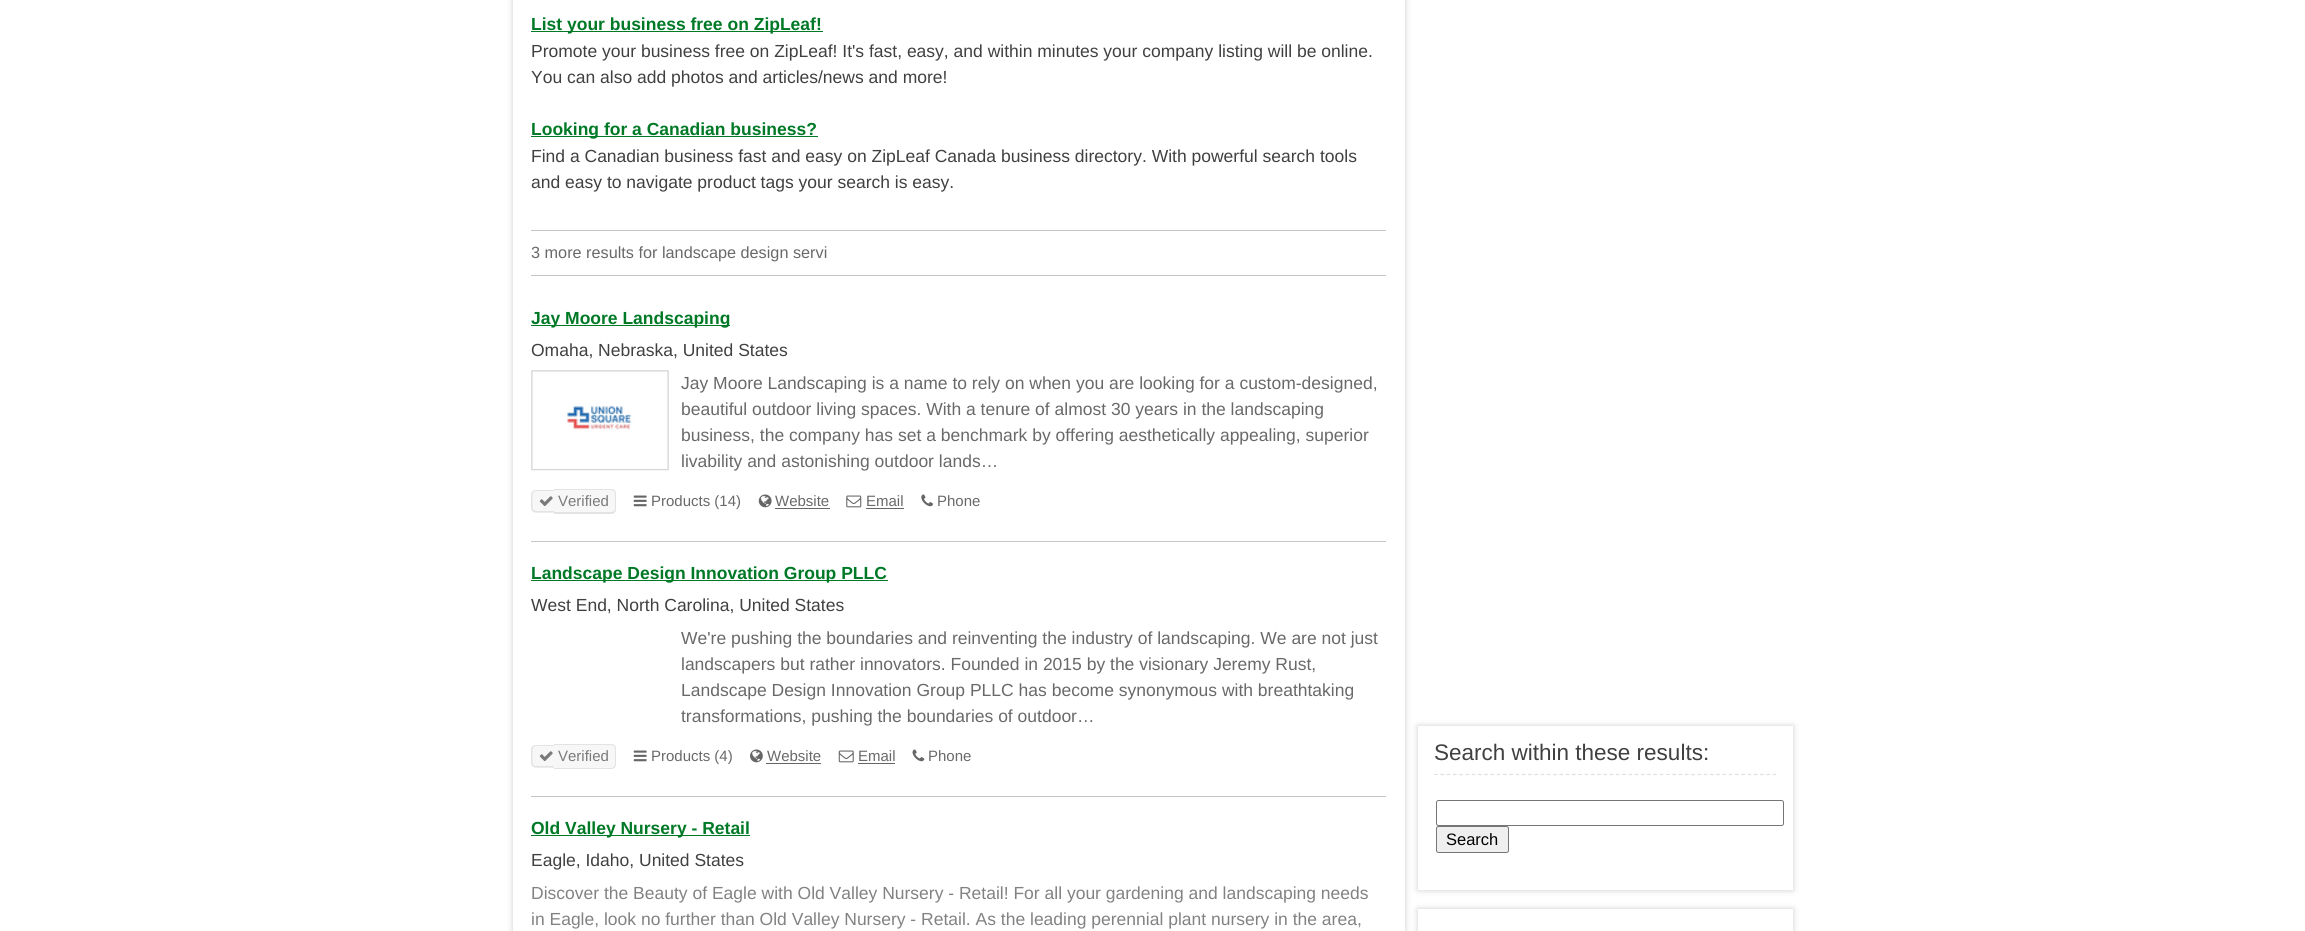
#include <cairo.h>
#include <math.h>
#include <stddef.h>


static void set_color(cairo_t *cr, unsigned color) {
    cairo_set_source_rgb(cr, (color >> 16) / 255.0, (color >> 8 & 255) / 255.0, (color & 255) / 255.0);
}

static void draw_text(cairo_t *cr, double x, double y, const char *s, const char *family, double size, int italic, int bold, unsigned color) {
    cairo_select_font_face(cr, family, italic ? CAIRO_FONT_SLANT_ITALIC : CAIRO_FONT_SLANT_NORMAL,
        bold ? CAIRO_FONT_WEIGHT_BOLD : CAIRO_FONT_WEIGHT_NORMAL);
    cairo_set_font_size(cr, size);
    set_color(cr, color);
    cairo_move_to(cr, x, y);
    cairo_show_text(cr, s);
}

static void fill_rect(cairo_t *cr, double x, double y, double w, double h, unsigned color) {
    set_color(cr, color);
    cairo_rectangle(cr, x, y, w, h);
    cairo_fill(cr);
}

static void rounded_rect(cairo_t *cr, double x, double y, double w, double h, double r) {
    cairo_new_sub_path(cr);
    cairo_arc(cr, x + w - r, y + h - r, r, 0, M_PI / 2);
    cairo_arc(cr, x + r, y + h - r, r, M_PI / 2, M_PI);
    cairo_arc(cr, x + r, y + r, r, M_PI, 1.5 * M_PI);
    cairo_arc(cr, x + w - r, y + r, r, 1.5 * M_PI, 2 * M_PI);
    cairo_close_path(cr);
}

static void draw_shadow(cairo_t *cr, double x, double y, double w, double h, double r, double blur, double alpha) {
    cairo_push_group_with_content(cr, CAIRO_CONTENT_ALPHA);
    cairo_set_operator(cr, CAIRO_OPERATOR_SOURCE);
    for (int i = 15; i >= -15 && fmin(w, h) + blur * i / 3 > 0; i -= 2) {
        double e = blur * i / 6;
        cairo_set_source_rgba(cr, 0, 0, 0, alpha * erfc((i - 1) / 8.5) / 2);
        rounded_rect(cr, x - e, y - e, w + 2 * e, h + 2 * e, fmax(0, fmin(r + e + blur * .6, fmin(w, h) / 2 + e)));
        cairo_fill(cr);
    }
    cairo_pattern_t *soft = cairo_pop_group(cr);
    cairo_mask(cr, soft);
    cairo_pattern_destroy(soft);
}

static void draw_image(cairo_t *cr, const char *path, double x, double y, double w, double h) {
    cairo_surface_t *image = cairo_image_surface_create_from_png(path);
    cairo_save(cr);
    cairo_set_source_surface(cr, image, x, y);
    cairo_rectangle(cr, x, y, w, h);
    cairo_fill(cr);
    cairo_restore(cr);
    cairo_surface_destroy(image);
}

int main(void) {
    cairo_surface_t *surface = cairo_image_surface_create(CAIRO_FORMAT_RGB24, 2305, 931);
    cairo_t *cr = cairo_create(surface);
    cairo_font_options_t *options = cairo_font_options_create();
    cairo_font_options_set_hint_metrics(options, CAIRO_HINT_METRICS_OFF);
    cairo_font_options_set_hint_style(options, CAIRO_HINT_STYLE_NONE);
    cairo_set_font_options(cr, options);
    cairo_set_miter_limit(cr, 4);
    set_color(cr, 0xFFFFFF);
    cairo_paint(cr);
    cairo_save(cr);
    cairo_set_fill_rule(cr, CAIRO_FILL_RULE_EVEN_ODD);
    cairo_new_path(cr);
    cairo_move_to(cr, 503, 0);
    cairo_line_to(cr, 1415, 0);
    cairo_line_to(cr, 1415, 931);
    cairo_line_to(cr, 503, 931);
    cairo_close_path(cr);
    cairo_move_to(cr, 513, -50);
    cairo_line_to(cr, 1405, -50);
    cairo_line_to(cr, 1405, 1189);
    cairo_line_to(cr, 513, 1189);
    cairo_close_path(cr);
    cairo_clip(cr);
    set_color(cr, 0xCCCCCC);
    draw_shadow(cr, 513, -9, 892, 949, 0, 3, 1);
    cairo_restore(cr);
    fill_rect(cr, 531, 31, 292, 1, 0x007927);
    draw_text(cr, 531, 30, "List your business free on ZipLeaf!", "Liberation Sans", 17.5, 0, 1, 0x007927);
    draw_text(cr, 531, 57, "Promote your business free on ZipLeaf! It's fast, easy, and within minutes your company listing will be online.", "Liberation Sans", 17.5, 0, 0, 0x404040);
    draw_text(cr, 531, 83, "You can also add photos and articles/news and more!", "Liberation Sans", 17.5, 0, 0, 0x404040);
    fill_rect(cr, 531, 136, 287, 1, 0x007927);
    draw_text(cr, 531, 135, "Looking for a Canadian business?", "Liberation Sans", 17.5, 0, 1, 0x007927);
    draw_text(cr, 531, 162, "Find a Canadian business fast and easy on ZipLeaf Canada business directory. With powerful search tools", "Liberation Sans", 17.5, 0, 0, 0x404040);
    draw_text(cr, 531, 188, "and easy to navigate product tags your search is easy.", "Liberation Sans", 17.5, 0, 0, 0x404040);
    fill_rect(cr, 531, 230, 855, 1, 0xC5C5C5);
    fill_rect(cr, 531, 275, 855, 1, 0xC5C5C5);
    draw_text(cr, 531, 258, "3 more results for landscape design servi", "Liberation Sans", 16.25, 0, 0, 0x696969);
    fill_rect(cr, 531, 541, 855, 1, 0xC5C5C5);
    fill_rect(cr, 531, 325, 199, 1, 0x007927);
    draw_text(cr, 531, 324, "Jay Moore Landscaping", "Liberation Sans", 17.5, 0, 1, 0x007927);
    draw_text(cr, 531, 356, "Omaha, Nebraska, United States", "Liberation Sans", 17.5, 0, 0, 0x404040);
    draw_image(cr, "assets/img1.png", 531, 370, 138, 101);
    draw_text(cr, 681, 389, "Jay Moore Landscaping is a name to rely on when you are looking for a custom-designed,", "Liberation Sans", 17.5, 0, 0, 0x696969);
    draw_text(cr, 681, 415, "beautiful outdoor living spaces. With a tenure of almost 30 years in the landscaping", "Liberation Sans", 17.5, 0, 0, 0x696969);
    draw_text(cr, 681, 441, "business, the company has set a benchmark by offering aesthetically appealing, superior", "Liberation Sans", 17.5, 0, 0, 0x696969);
    draw_text(cr, 681, 467, "livability and astonishing outdoor lands…", "Liberation Sans", 17.5, 0, 0, 0x696969);
    set_color(cr, 0xF7F7F7);
    cairo_new_path(cr);
    cairo_move_to(cr, 536, 490);
    cairo_line_to(cr, 554, 490);
    cairo_line_to(cr, 554, 513);
    cairo_line_to(cr, 536, 513);
    cairo_curve_to(cr, 533, 513, 531, 511, 531, 508);
    cairo_line_to(cr, 531, 495);
    cairo_curve_to(cr, 531, 492, 533, 490, 536, 490);
    cairo_close_path(cr);
    cairo_fill(cr);
    set_color(cr, 0xE3E3E3);
    cairo_set_fill_rule(cr, CAIRO_FILL_RULE_EVEN_ODD);
    cairo_new_path(cr);
    cairo_move_to(cr, 536, 490);
    cairo_line_to(cr, 554, 490);
    cairo_line_to(cr, 554, 512.5);
    cairo_line_to(cr, 536, 512.5);
    cairo_curve_to(cr, 533.5, 512.5, 531, 510.5, 531, 507.5);
    cairo_line_to(cr, 531, 495);
    cairo_curve_to(cr, 531, 492, 533.5, 490, 536, 490);
    cairo_close_path(cr);
    cairo_move_to(cr, 536, 491);
    cairo_line_to(cr, 554, 491);
    cairo_line_to(cr, 554, 511);
    cairo_line_to(cr, 536, 511);
    cairo_curve_to(cr, 534, 511, 532.5, 509.5, 532.5, 507.5);
    cairo_line_to(cr, 532.5, 495);
    cairo_curve_to(cr, 532.5, 493, 534, 491, 536, 491);
    cairo_close_path(cr);
    cairo_fill(cr);
    set_color(cr, 0xF7F7F7);
    cairo_new_path(cr);
    cairo_move_to(cr, 554, 489);
    cairo_line_to(cr, 611, 489);
    cairo_curve_to(cr, 614, 489, 616, 491, 616, 494);
    cairo_line_to(cr, 616, 509);
    cairo_curve_to(cr, 616, 512, 614, 514, 611, 514);
    cairo_line_to(cr, 554, 514);
    cairo_close_path(cr);
    cairo_fill(cr);
    set_color(cr, 0xE3E3E3);
    cairo_new_path(cr);
    cairo_move_to(cr, 554, 489);
    cairo_line_to(cr, 611, 489);
    cairo_curve_to(cr, 614, 489, 616, 491, 616, 494);
    cairo_line_to(cr, 616, 509);
    cairo_curve_to(cr, 616, 512, 614, 514, 611, 514);
    cairo_line_to(cr, 554, 514);
    cairo_close_path(cr);
    cairo_move_to(cr, 554, 490);
    cairo_line_to(cr, 611, 490);
    cairo_curve_to(cr, 613, 490, 615, 492, 615, 494);
    cairo_line_to(cr, 615, 509);
    cairo_curve_to(cr, 615, 511, 613, 512, 611, 512);
    cairo_line_to(cr, 554, 512);
    cairo_close_path(cr);
    cairo_fill(cr);
    draw_image(cr, "assets/img2.png", 539, 496, 14, 11);
    draw_text(cr, 558, 506, "Verified", "Liberation Sans", 15, 0, 0, 0x7A7A7A);
    draw_image(cr, "assets/img3.png", 633, 495, 14, 12);
    draw_text(cr, 651, 506, "Products (14)", "Liberation Sans", 15, 0, 0, 0x696969);
    draw_image(cr, "assets/img4.png", 758, 494, 14, 14);
    draw_text(cr, 775, 506, "Website", "Liberation Sans", 15, 0, 0, 0x696969);
    fill_rect(cr, 775, 508, 55, 1, 0x666666);
    draw_image(cr, "assets/img5.png", 846, 495, 16, 13);
    draw_text(cr, 866, 506, "Email", "Liberation Sans", 15, 0, 0, 0x696969);
    fill_rect(cr, 866, 508, 38, 1, 0x666666);
    draw_image(cr, "assets/img6.png", 921, 494, 12, 13);
    draw_text(cr, 937, 506, "Phone", "Liberation Sans", 15, 0, 0, 0x696969);
    fill_rect(cr, 531, 796, 855, 1, 0xC5C5C5);
    fill_rect(cr, 531, 580, 357, 1, 0x007927);
    draw_text(cr, 531, 579, "Landscape Design Innovation Group PLLC", "Liberation Sans", 17.5, 0, 1, 0x007927);
    draw_text(cr, 531, 611, "West End, North Carolina, United States", "Liberation Sans", 17.5, 0, 0, 0x404040);
    draw_text(cr, 681, 644, "We're pushing the boundaries and reinventing the industry of landscaping. We are not just", "Liberation Sans", 17.5, 0, 0, 0x696969);
    draw_text(cr, 681, 670, "landscapers but rather innovators. Founded in 2015 by the visionary Jeremy Rust,", "Liberation Sans", 17.5, 0, 0, 0x696969);
    draw_text(cr, 681, 696, "Landscape Design Innovation Group PLLC has become synonymous with breathtaking", "Liberation Sans", 17.5, 0, 0, 0x696969);
    draw_text(cr, 681, 722, "transformations, pushing the boundaries of outdoor…", "Liberation Sans", 17.5, 0, 0, 0x696969);
    set_color(cr, 0xF7F7F7);
    cairo_new_path(cr);
    cairo_move_to(cr, 536, 745);
    cairo_line_to(cr, 554, 745);
    cairo_line_to(cr, 554, 768);
    cairo_line_to(cr, 536, 768);
    cairo_curve_to(cr, 533, 768, 531, 766, 531, 763);
    cairo_line_to(cr, 531, 750);
    cairo_curve_to(cr, 531, 747, 533, 745, 536, 745);
    cairo_close_path(cr);
    cairo_fill(cr);
    set_color(cr, 0xE3E3E3);
    cairo_new_path(cr);
    cairo_move_to(cr, 536, 745);
    cairo_line_to(cr, 554, 745);
    cairo_line_to(cr, 554, 767.5);
    cairo_line_to(cr, 536, 767.5);
    cairo_curve_to(cr, 533.5, 767.5, 531, 765.5, 531, 762.5);
    cairo_line_to(cr, 531, 750);
    cairo_curve_to(cr, 531, 747, 533.5, 745, 536, 745);
    cairo_close_path(cr);
    cairo_move_to(cr, 536, 746);
    cairo_line_to(cr, 554, 746);
    cairo_line_to(cr, 554, 766);
    cairo_line_to(cr, 536, 766);
    cairo_curve_to(cr, 534, 766, 532.5, 764.5, 532.5, 762.5);
    cairo_line_to(cr, 532.5, 750);
    cairo_curve_to(cr, 532.5, 748, 534, 746, 536, 746);
    cairo_close_path(cr);
    cairo_fill(cr);
    set_color(cr, 0xF7F7F7);
    cairo_new_path(cr);
    cairo_move_to(cr, 554, 744);
    cairo_line_to(cr, 611, 744);
    cairo_curve_to(cr, 614, 744, 616, 746, 616, 749);
    cairo_line_to(cr, 616, 764);
    cairo_curve_to(cr, 616, 767, 614, 769, 611, 769);
    cairo_line_to(cr, 554, 769);
    cairo_close_path(cr);
    cairo_fill(cr);
    set_color(cr, 0xE3E3E3);
    cairo_new_path(cr);
    cairo_move_to(cr, 554, 744);
    cairo_line_to(cr, 611, 744);
    cairo_curve_to(cr, 614, 744, 616, 746, 616, 749);
    cairo_line_to(cr, 616, 764);
    cairo_curve_to(cr, 616, 767, 614, 769, 611, 769);
    cairo_line_to(cr, 554, 769);
    cairo_close_path(cr);
    cairo_move_to(cr, 554, 745);
    cairo_line_to(cr, 611, 745);
    cairo_curve_to(cr, 613, 745, 615, 747, 615, 749);
    cairo_line_to(cr, 615, 764);
    cairo_curve_to(cr, 615, 766, 613, 768, 611, 768);
    cairo_line_to(cr, 554, 768);
    cairo_close_path(cr);
    cairo_fill(cr);
    draw_image(cr, "assets/img2.png", 539, 751, 14, 11);
    draw_text(cr, 558, 761, "Verified", "Liberation Sans", 15, 0, 0, 0x7A7A7A);
    draw_image(cr, "assets/img3.png", 633, 750, 14, 12);
    draw_text(cr, 651, 761, "Products (4)", "Liberation Sans", 15, 0, 0, 0x696969);
    draw_image(cr, "assets/img7.png", 750, 749, 13, 14);
    draw_text(cr, 767, 761, "Website", "Liberation Sans", 15, 0, 0, 0x696969);
    fill_rect(cr, 766, 763, 55, 1, 0x666666);
    draw_image(cr, "assets/img8.png", 838, 750, 16, 13);
    draw_text(cr, 858, 761, "Email", "Liberation Sans", 15, 0, 0, 0x696969);
    fill_rect(cr, 858, 763, 37, 1, 0x666666);
    draw_image(cr, "assets/img9.png", 912, 749, 13, 13);
    draw_text(cr, 928, 761, "Phone", "Liberation Sans", 15, 0, 0, 0x696969);
    fill_rect(cr, 531, 835, 219, 1, 0x007927);
    draw_text(cr, 531, 834, "Old Valley Nursery - Retail", "Liberation Sans", 17.5, 0, 1, 0x007927);
    draw_text(cr, 531, 866, "Eagle, Idaho, United States", "Liberation Sans", 17.5, 0, 0, 0x404040);
    draw_text(cr, 531, 899, "Discover the Beauty of Eagle with Old Valley Nursery - Retail! For all your gardening and landscaping needs", "Liberation Sans", 17.5, 0, 0, 0x828282);
    draw_text(cr, 531, 925, "in Eagle, look no further than Old Valley Nursery - Retail. As the leading perennial plant nursery in the area,", "Liberation Sans", 17.5, 0, 0, 0x828282);
    set_color(cr, 0xCCCCCC);
    draw_shadow(cr, 1418, 726, 375, 164, 0, 3, 1);
    fill_rect(cr, 1418, 726, 375, 164, 0xFFFFFF);
    cairo_new_path(cr);
    cairo_move_to(cr, 1434, 774.5);
    cairo_line_to(cr, 1776, 774.5);
    set_color(cr, 0xE0E0E0);
    cairo_set_line_width(cr, 1.2);
    cairo_set_dash(cr, (double[]){3.75, 2.52}, 2, 0);
    cairo_stroke(cr);
    draw_text(cr, 1434, 760, "Search within these results:", "Liberation Sans", 22.5, 0, 0, 0x404040);
    rounded_rect(cr, 1436.5, 800.5, 347, 25, 2);
    set_color(cr, 0x767676);
    cairo_set_line_width(cr, 1);
    cairo_set_dash(cr, NULL, 0, 0);
    cairo_stroke(cr);
    set_color(cr, 0xEFEFEF);
    rounded_rect(cr, 1436.5, 826.5, 72, 26, 2);
    cairo_fill_preserve(cr);
    set_color(cr, 0x767676);
    cairo_stroke(cr);
    draw_text(cr, 1446, 845, "Search", "Liberation Sans", 16.5, 0, 0, 0x000000);
    set_color(cr, 0xCCCCCC);
    draw_shadow(cr, 1418, 909, 375, 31, 0, 3, 1);
    fill_rect(cr, 1418, 909, 375, 22, 0xFFFFFF);
    cairo_surface_write_to_png(surface, "output.png");
    cairo_font_options_destroy(options);
    cairo_destroy(cr);
    cairo_surface_destroy(surface);
    return 0;
}
